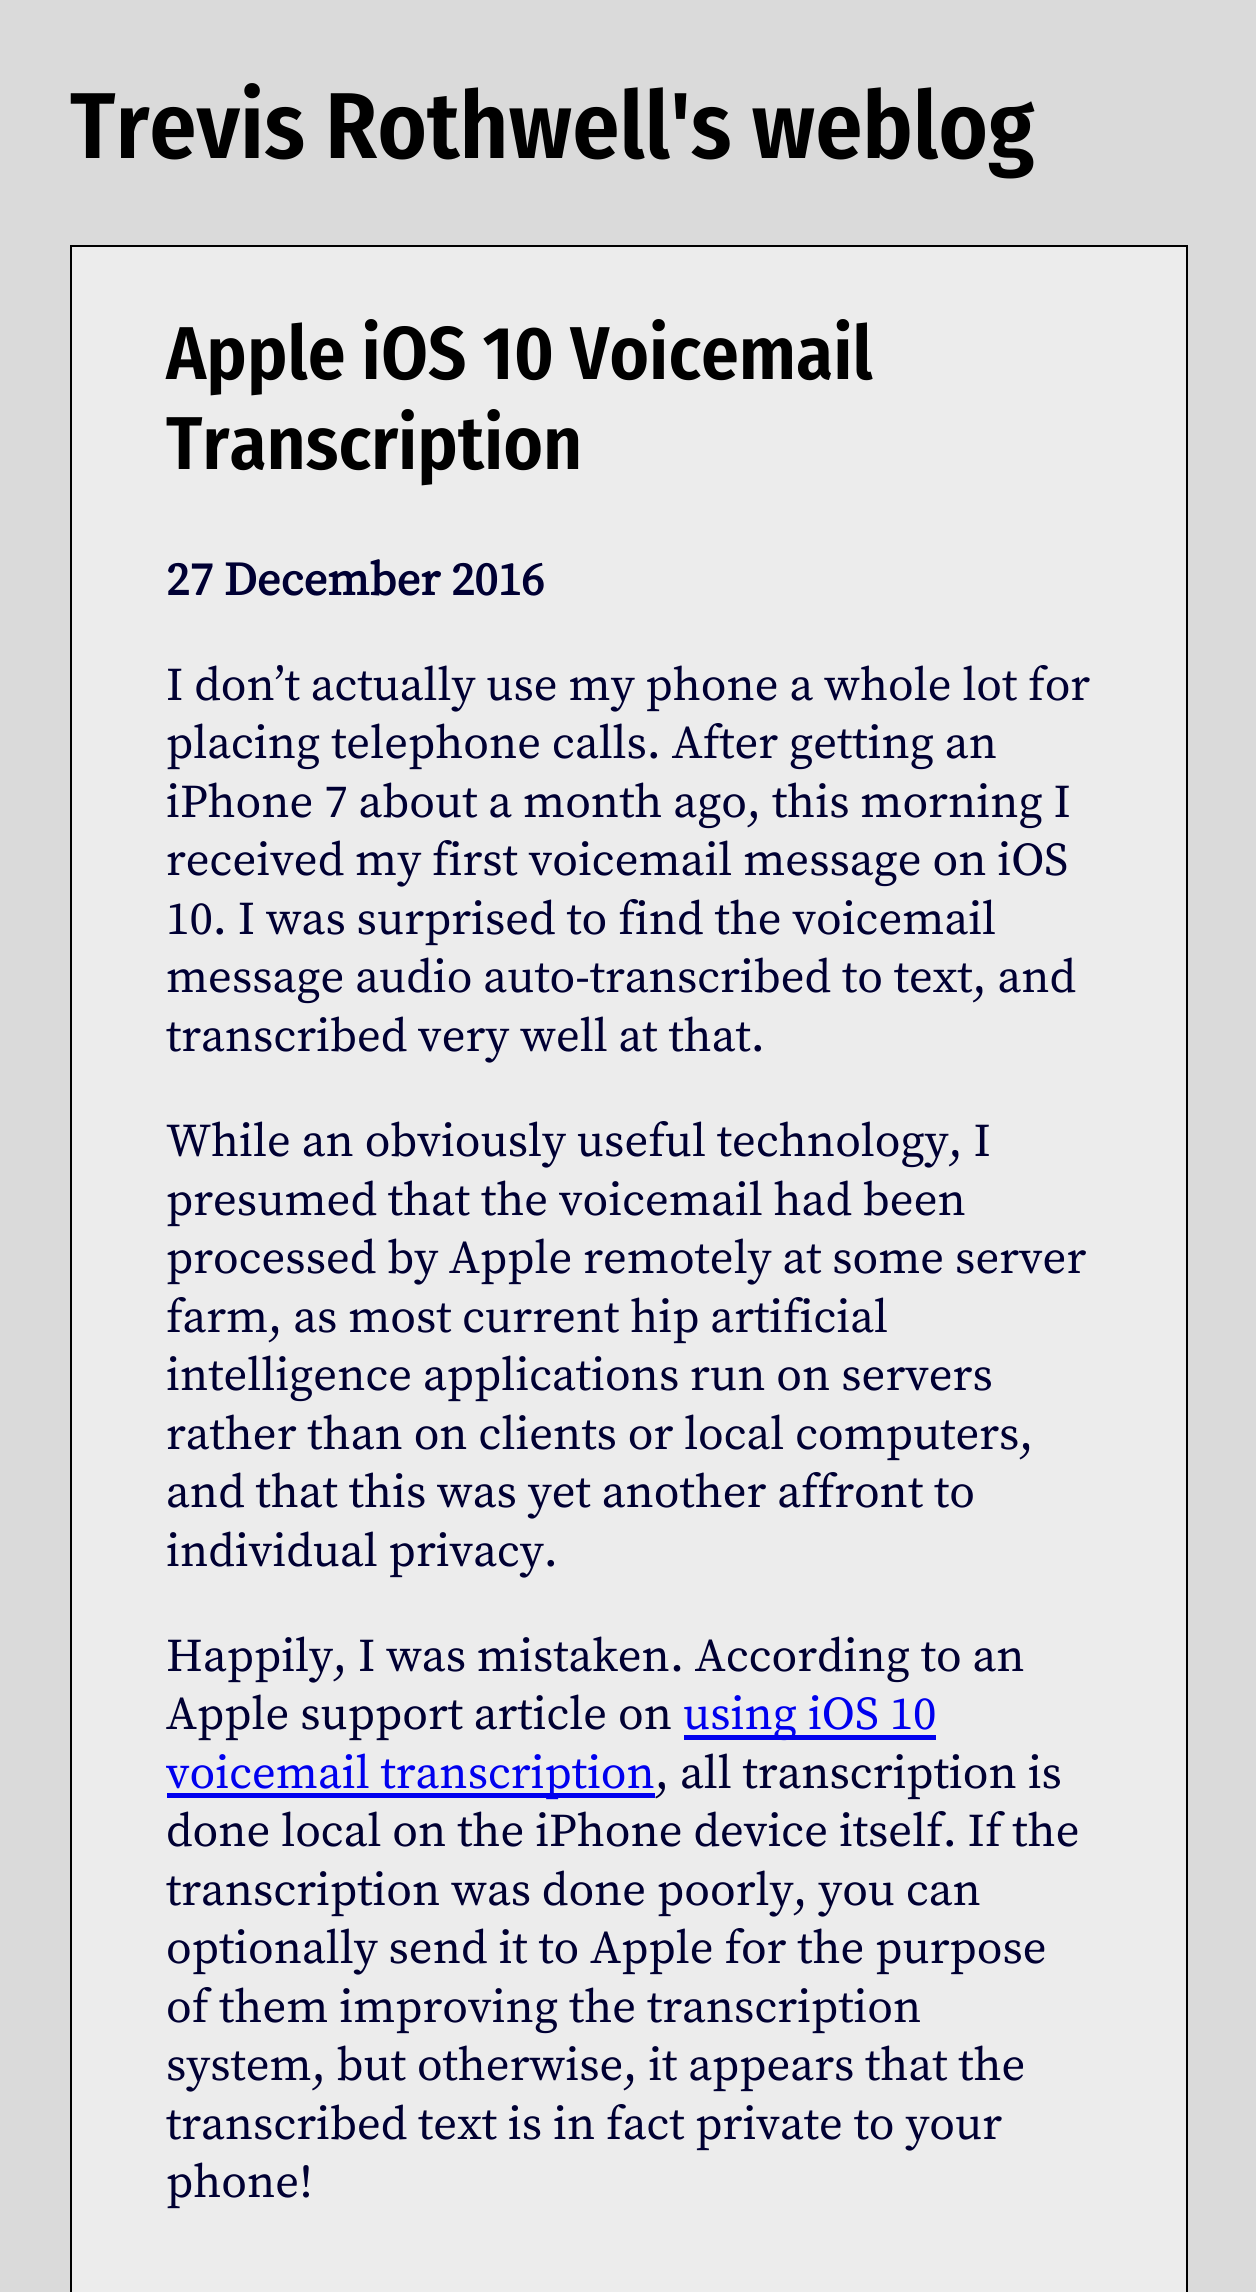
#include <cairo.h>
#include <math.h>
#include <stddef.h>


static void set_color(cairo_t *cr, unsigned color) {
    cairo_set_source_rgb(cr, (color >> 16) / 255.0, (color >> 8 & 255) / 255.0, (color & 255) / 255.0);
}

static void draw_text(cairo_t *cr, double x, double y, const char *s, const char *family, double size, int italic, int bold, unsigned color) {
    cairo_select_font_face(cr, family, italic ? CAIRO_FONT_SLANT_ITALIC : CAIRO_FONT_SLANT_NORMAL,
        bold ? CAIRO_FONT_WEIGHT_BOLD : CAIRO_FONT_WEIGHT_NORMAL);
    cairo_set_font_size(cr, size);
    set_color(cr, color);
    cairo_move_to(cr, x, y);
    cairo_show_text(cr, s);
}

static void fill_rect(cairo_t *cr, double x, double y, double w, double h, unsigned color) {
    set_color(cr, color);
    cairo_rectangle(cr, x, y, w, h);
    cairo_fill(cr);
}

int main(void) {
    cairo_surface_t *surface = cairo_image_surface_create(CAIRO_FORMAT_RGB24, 1256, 2292);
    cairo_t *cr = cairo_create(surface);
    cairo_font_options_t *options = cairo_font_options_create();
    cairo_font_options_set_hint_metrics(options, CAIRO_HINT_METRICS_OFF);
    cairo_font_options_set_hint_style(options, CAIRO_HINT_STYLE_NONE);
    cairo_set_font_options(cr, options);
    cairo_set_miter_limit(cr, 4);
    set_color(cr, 0xDADADA);
    cairo_paint(cr);
    draw_text(cr, 70, 158, "Trevis Rothwell's weblog", "Fira Sans Condensed SemiBold", 93.6, 0, 0, 0x000000);
    set_color(cr, 0xECECEC);
    cairo_rectangle(cr, 71, 246, 1116, 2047);
    cairo_fill_preserve(cr);
    set_color(cr, 0x000000);
    cairo_stroke(cr);
    draw_text(cr, 166, 379, "Apple iOS 10 Voicemail", "Fira Sans Condensed SemiBold", 74.9, 0, 0, 0x000000);
    draw_text(cr, 166, 469, "Transcription", "Fira Sans Condensed SemiBold", 74.9, 0, 0, 0x000000);
    draw_text(cr, 166, 595, "27 December 2016", "Source Serif Pro", 46.75, 0, 1, 0x000033);
    draw_text(cr, 166, 700, "I don’t actually use my phone a whole lot for", "Source Serif Pro", 46.75, 0, 0, 0x000033);
    draw_text(cr, 166, 758, "placing telephone calls. After getting an", "Source Serif Pro", 46.75, 0, 0, 0x000033);
    draw_text(cr, 166, 817, "iPhone 7 about a month ago, this morning I", "Source Serif Pro", 46.75, 0, 0, 0x000033);
    draw_text(cr, 166, 875, "received my first voicemail message on iOS", "Source Serif Pro", 46.75, 0, 0, 0x000033);
    draw_text(cr, 166, 934, "10. I was surprised to find the voicemail", "Source Serif Pro", 46.75, 0, 0, 0x000033);
    draw_text(cr, 166, 992, "message audio auto-transcribed to text, and", "Source Serif Pro", 46.75, 0, 0, 0x000033);
    draw_text(cr, 166, 1051, "transcribed very well at that.", "Source Serif Pro", 46.75, 0, 0, 0x000033);
    draw_text(cr, 166, 1156, "While an obviously useful technology, I", "Source Serif Pro", 46.75, 0, 0, 0x000033);
    draw_text(cr, 166, 1215, "presumed that the voicemail had been", "Source Serif Pro", 46.75, 0, 0, 0x000033);
    draw_text(cr, 166, 1273, "processed by Apple remotely at some server", "Source Serif Pro", 46.75, 0, 0, 0x000033);
    draw_text(cr, 166, 1332, "farm, as most current hip artificial", "Source Serif Pro", 46.75, 0, 0, 0x000033);
    draw_text(cr, 166, 1390, "intelligence applications run on servers", "Source Serif Pro", 46.75, 0, 0, 0x000033);
    draw_text(cr, 166, 1449, "rather than on clients or local computers,", "Source Serif Pro", 46.75, 0, 0, 0x000033);
    draw_text(cr, 166, 1507, "and that this was yet another affront to", "Source Serif Pro", 46.75, 0, 0, 0x000033);
    draw_text(cr, 166, 1566, "individual privacy.", "Source Serif Pro", 46.75, 0, 0, 0x000033);
    draw_text(cr, 166, 1671, "Happily, I was mistaken. According to an", "Source Serif Pro", 46.75, 0, 0, 0x000033);
    draw_text(cr, 166, 1729, "Apple support article on", "Source Serif Pro", 46.75, 0, 0, 0x000033);
    fill_rect(cr, 684, 1735, 252, 5, 0x0000EE);
    draw_text(cr, 683, 1729, "using iOS 10", "Source Serif Pro", 46.75, 0, 0, 0x0000EE);
    fill_rect(cr, 167, 1793, 488, 5, 0x0000EE);
    draw_text(cr, 166, 1788, "voicemail transcription", "Source Serif Pro", 46.75, 0, 0, 0x0000EE);
    draw_text(cr, 655, 1788, ", all transcription is", "Source Serif Pro", 46.75, 0, 0, 0x000033);
    draw_text(cr, 166, 1846, "done local on the iPhone device itself. If the", "Source Serif Pro", 46.75, 0, 0, 0x000033);
    draw_text(cr, 166, 1905, "transcription was done poorly, you can", "Source Serif Pro", 46.75, 0, 0, 0x000033);
    draw_text(cr, 166, 1963, "optionally send it to Apple for the purpose", "Source Serif Pro", 46.75, 0, 0, 0x000033);
    draw_text(cr, 166, 2022, "of them improving the transcription", "Source Serif Pro", 46.75, 0, 0, 0x000033);
    draw_text(cr, 166, 2080, "system, but otherwise, it appears that the", "Source Serif Pro", 46.75, 0, 0, 0x000033);
    draw_text(cr, 166, 2139, "transcribed text is in fact private to your", "Source Serif Pro", 46.75, 0, 0, 0x000033);
    draw_text(cr, 166, 2197, "phone!", "Source Serif Pro", 46.75, 0, 0, 0x000033);
    cairo_surface_write_to_png(surface, "output.png");
    cairo_font_options_destroy(options);
    cairo_destroy(cr);
    cairo_surface_destroy(surface);
    return 0;
}
